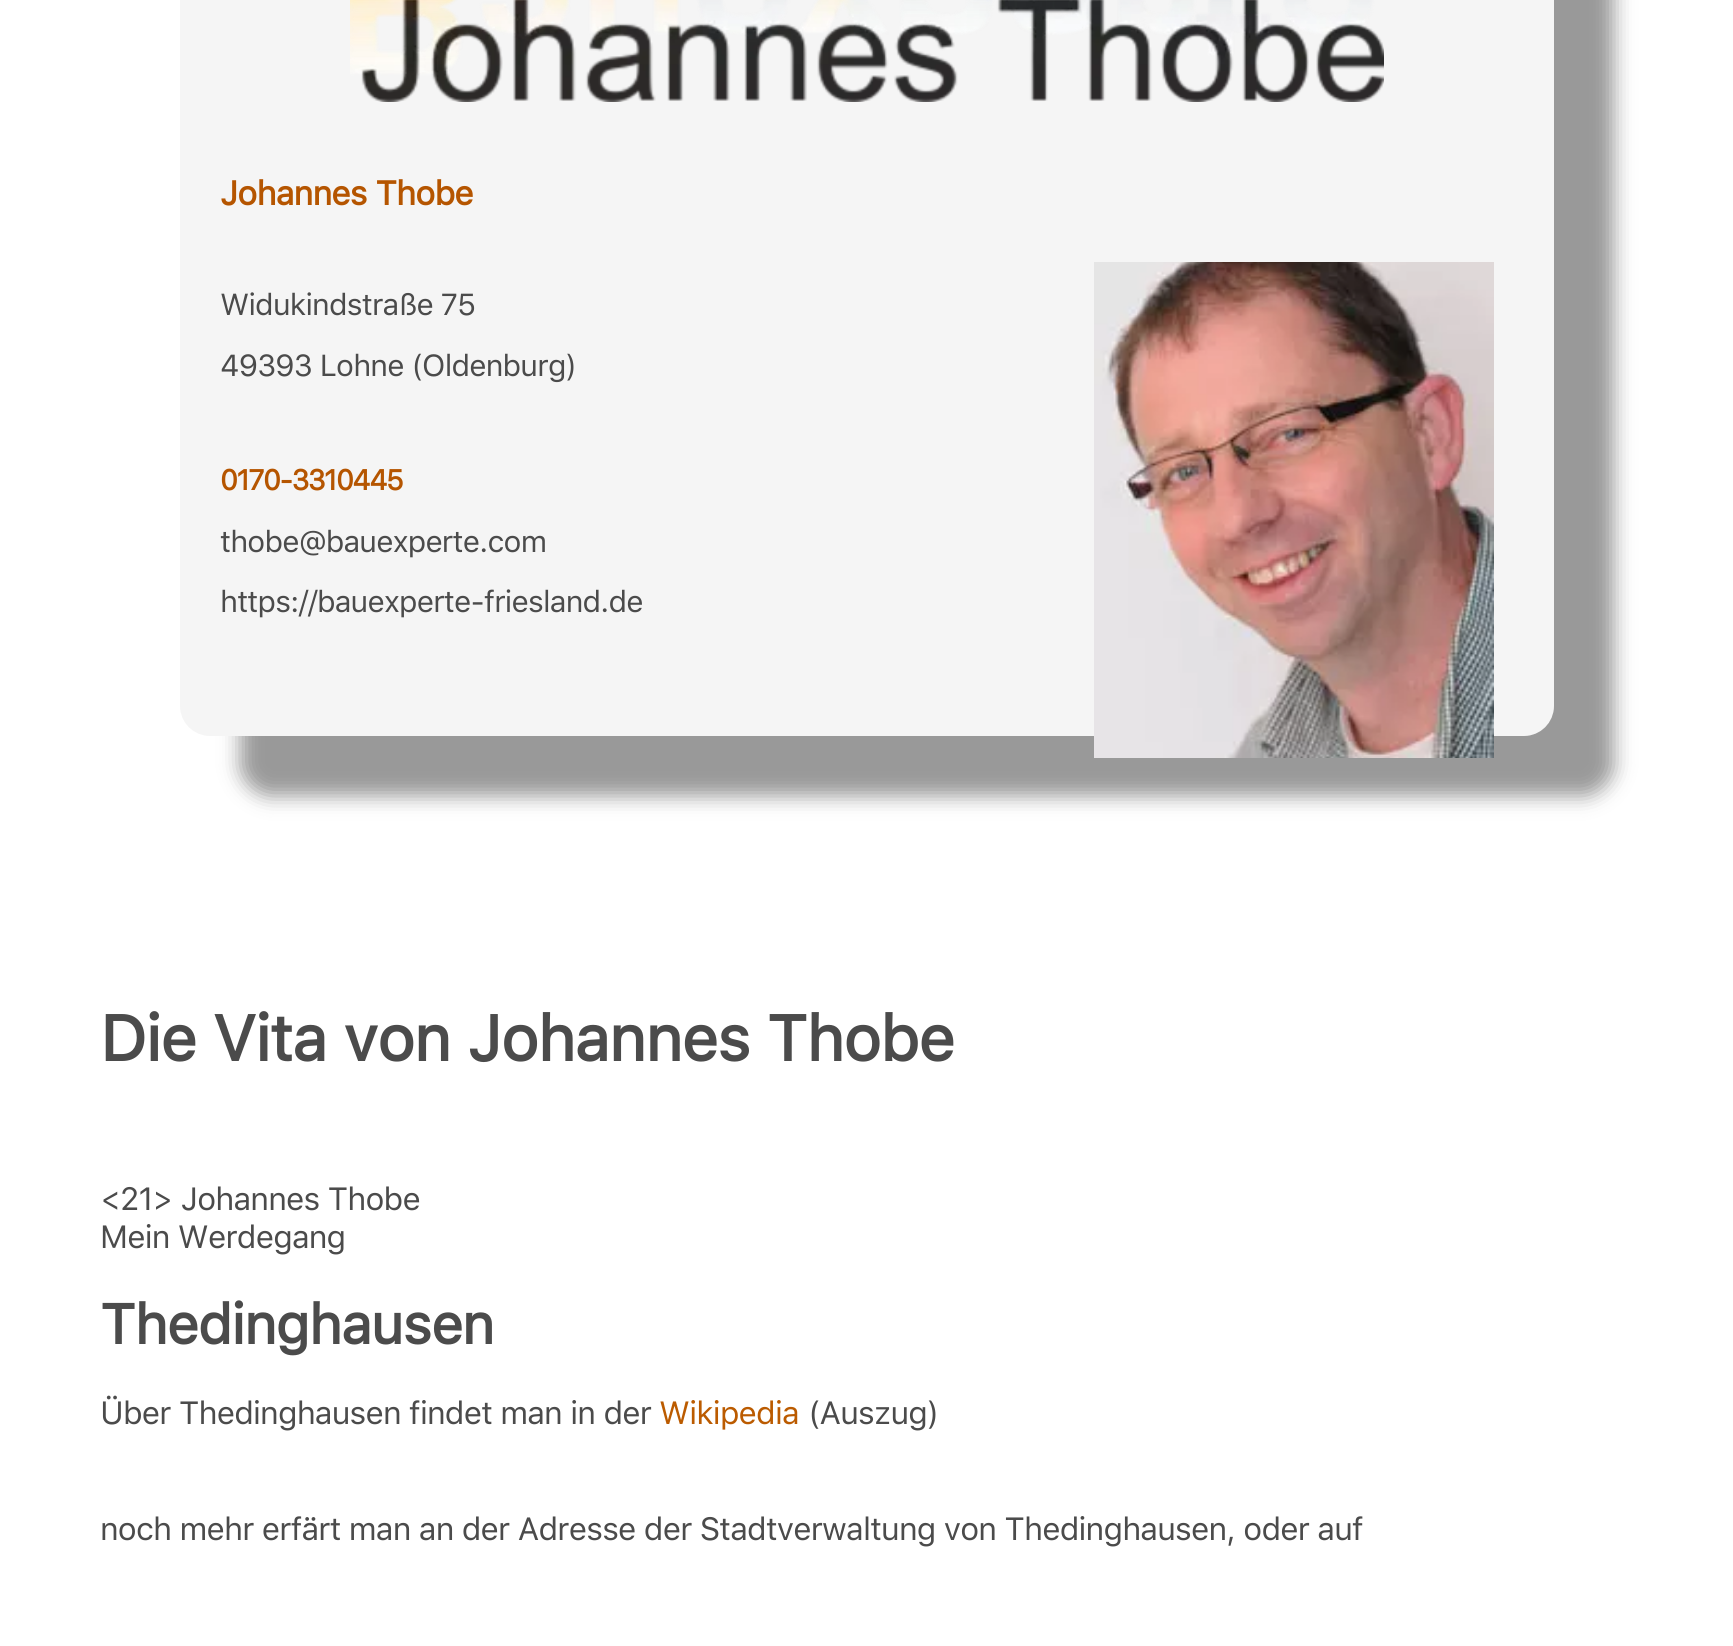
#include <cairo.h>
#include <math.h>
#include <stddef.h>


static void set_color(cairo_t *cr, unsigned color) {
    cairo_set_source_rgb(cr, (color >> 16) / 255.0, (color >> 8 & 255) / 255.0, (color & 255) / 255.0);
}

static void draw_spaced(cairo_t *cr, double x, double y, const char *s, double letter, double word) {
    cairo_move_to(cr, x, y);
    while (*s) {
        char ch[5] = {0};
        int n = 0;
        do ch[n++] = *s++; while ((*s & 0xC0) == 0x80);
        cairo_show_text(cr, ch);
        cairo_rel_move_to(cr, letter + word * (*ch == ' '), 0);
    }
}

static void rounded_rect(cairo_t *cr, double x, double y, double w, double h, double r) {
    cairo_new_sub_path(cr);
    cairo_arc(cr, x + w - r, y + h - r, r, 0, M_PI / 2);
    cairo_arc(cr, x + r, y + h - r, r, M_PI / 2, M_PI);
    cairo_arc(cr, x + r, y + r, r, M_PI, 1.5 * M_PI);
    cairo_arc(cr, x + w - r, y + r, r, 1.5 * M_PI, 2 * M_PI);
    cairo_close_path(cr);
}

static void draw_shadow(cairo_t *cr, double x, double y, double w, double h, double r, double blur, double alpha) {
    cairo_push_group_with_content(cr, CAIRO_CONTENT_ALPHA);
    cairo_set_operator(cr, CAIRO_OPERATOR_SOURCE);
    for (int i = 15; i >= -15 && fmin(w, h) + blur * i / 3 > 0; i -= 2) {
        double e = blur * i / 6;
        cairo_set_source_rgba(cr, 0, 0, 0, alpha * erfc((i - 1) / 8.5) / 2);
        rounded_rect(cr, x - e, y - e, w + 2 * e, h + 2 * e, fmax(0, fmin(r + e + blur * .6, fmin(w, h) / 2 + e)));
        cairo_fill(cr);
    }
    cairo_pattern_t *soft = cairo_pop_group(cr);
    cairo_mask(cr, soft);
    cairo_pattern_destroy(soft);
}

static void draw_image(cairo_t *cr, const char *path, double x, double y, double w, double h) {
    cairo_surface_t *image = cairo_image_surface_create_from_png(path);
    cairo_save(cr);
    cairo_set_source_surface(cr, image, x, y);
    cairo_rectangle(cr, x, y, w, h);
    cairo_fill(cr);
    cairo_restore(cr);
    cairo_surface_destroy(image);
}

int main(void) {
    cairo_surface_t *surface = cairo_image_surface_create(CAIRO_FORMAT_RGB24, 1733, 1646);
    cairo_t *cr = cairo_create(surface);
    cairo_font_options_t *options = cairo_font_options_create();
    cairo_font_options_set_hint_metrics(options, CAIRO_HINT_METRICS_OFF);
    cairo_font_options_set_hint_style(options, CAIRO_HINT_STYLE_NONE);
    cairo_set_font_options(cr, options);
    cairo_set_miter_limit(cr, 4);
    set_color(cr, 0xFFFFFF);
    cairo_paint(cr);
    set_color(cr, 0x000000);
    draw_shadow(cr, 240, -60, 1374, 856, 30, 10, 0.4);
    set_color(cr, 0xF5F5F5);
    rounded_rect(cr, 195, -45, 1344, 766, 15);
    cairo_fill_preserve(cr);
    cairo_set_line_width(cr, 30);
    cairo_stroke(cr);
    draw_image(cr, "assets/img1.png", 350, 0, 1034, 102);
    cairo_select_font_face(cr, "SF Pro Text", CAIRO_FONT_SLANT_NORMAL, CAIRO_FONT_WEIGHT_BOLD);
    cairo_set_font_size(cr, 33.75);
    set_color(cr, 0xB55500);
    draw_spaced(cr, 220, 205, "Johannes Thobe", -0.8, 0);
    draw_image(cr, "assets/img2.png", 1094, 262, 400, 496);
    cairo_select_font_face(cr, "SF Pro Text", CAIRO_FONT_SLANT_NORMAL, CAIRO_FONT_WEIGHT_NORMAL);
    cairo_set_font_size(cr, 30.25);
    set_color(cr, 0x4B4B4B);
    draw_spaced(cr, 220, 315, "Widukindstraße 75", -0.8, 0);
    draw_spaced(cr, 220, 376, "49393 Lohne (Oldenburg)", -0.8, 0);
    cairo_select_font_face(cr, "SF Pro Text", CAIRO_FONT_SLANT_NORMAL, CAIRO_FONT_WEIGHT_BOLD);
    cairo_set_font_size(cr, 28.5);
    set_color(cr, 0xB55500);
    draw_spaced(cr, 220, 490, "0170-3310445", -1.5, 0);
    cairo_select_font_face(cr, "SF Pro Text", CAIRO_FONT_SLANT_NORMAL, CAIRO_FONT_WEIGHT_NORMAL);
    cairo_set_font_size(cr, 30.25);
    set_color(cr, 0x4B4B4B);
    draw_spaced(cr, 220, 552, "thobe@bauexperte.com", -0.8, 0);
    draw_spaced(cr, 220, 612, "https://bauexperte-friesland.de", -0.8, 0);
    cairo_select_font_face(cr, "SF Pro Text", CAIRO_FONT_SLANT_NORMAL, CAIRO_FONT_WEIGHT_BOLD);
    cairo_set_font_size(cr, 64);
    draw_spaced(cr, 100, 1061, "Die Vita von Johannes Thobe", -1, 0);
    cairo_select_font_face(cr, "SF Pro Text", CAIRO_FONT_SLANT_NORMAL, CAIRO_FONT_WEIGHT_NORMAL);
    cairo_set_font_size(cr, 32);
    draw_spaced(cr, 100, 1210, "<21> Johannes Thobe", -0.8, 0);
    draw_spaced(cr, 100, 1248, "Mein Werdegang", -0.8, 0);
    cairo_select_font_face(cr, "SF Pro Text", CAIRO_FONT_SLANT_NORMAL, CAIRO_FONT_WEIGHT_BOLD);
    cairo_set_font_size(cr, 56);
    draw_spaced(cr, 100, 1344, "Thedinghausen", -1, 0);
    cairo_select_font_face(cr, "SF Pro Text", CAIRO_FONT_SLANT_NORMAL, CAIRO_FONT_WEIGHT_NORMAL);
    cairo_set_font_size(cr, 32);
    draw_spaced(cr, 100, 1424, "Über Thedinghausen findet man in der", -0.8, 0);
    set_color(cr, 0xBB5B00);
    draw_spaced(cr, 659, 1424, "Wikipedia", -0.8, 0);
    set_color(cr, 0x4B4B4B);
    draw_spaced(cr, 808, 1424, "(Auszug)", -0.8, 0);
    draw_spaced(cr, 100, 1540, "noch mehr erfärt man an der Adresse der Stadtverwaltung von Thedinghausen, oder auf", -0.8, 0);
    cairo_surface_write_to_png(surface, "output.png");
    cairo_font_options_destroy(options);
    cairo_destroy(cr);
    cairo_surface_destroy(surface);
    return 0;
}
